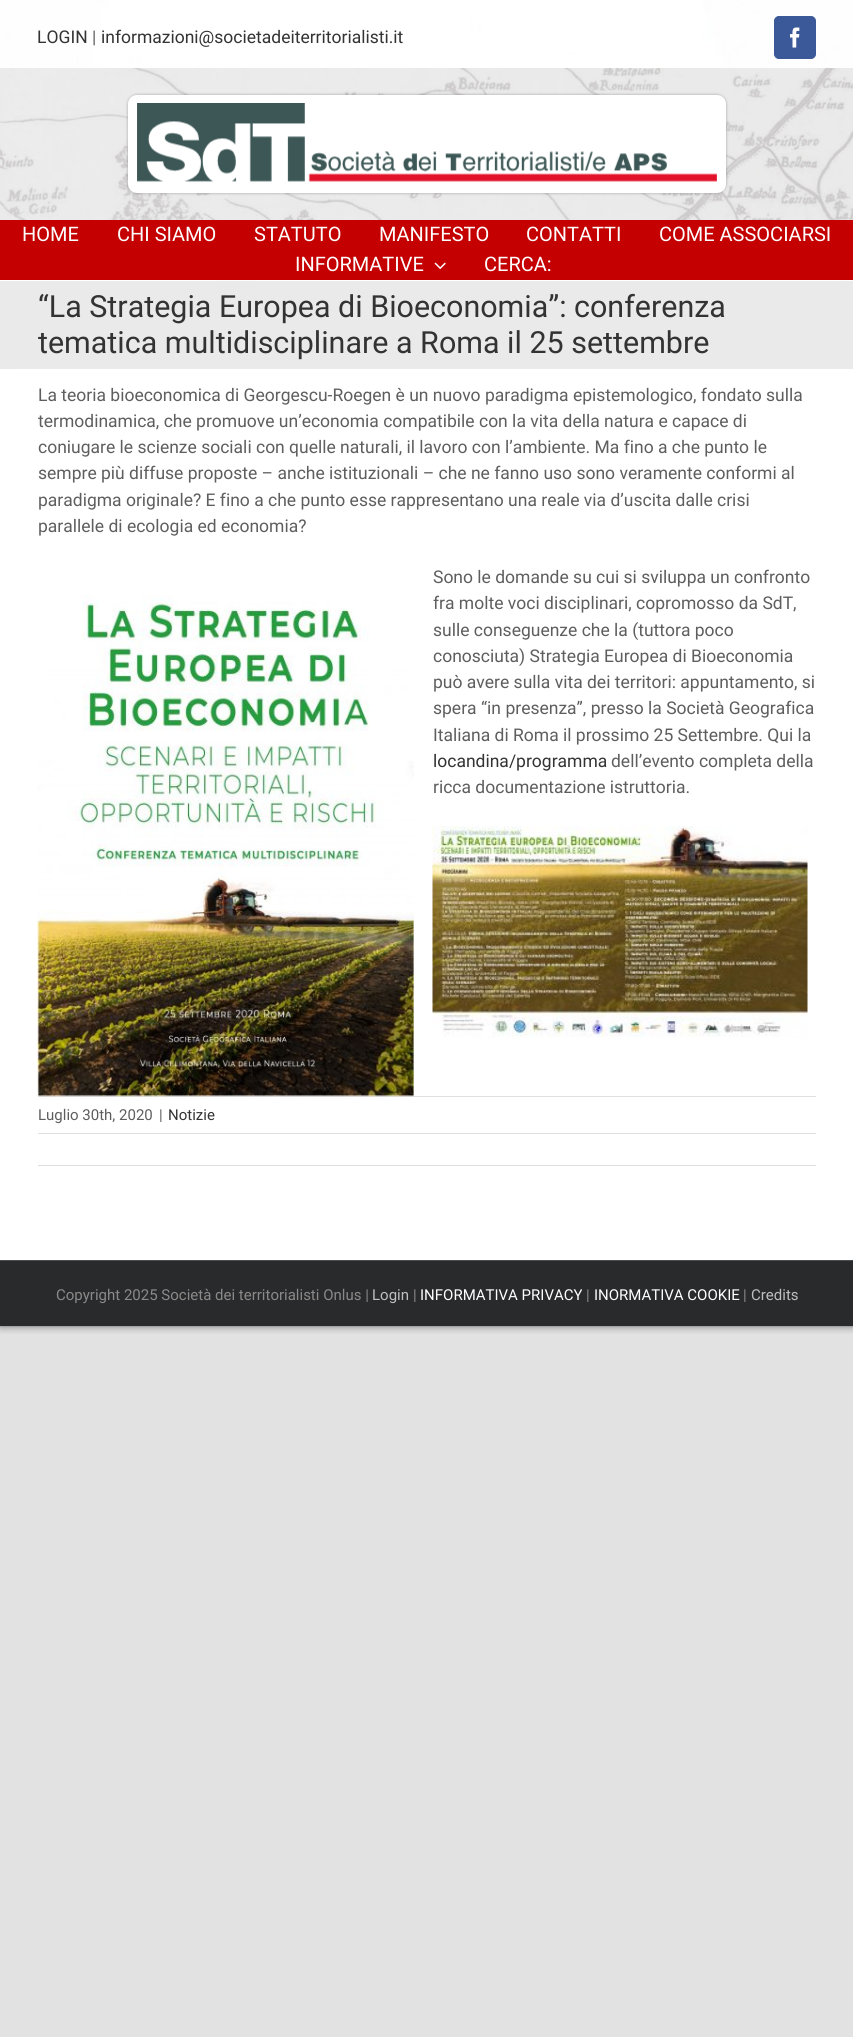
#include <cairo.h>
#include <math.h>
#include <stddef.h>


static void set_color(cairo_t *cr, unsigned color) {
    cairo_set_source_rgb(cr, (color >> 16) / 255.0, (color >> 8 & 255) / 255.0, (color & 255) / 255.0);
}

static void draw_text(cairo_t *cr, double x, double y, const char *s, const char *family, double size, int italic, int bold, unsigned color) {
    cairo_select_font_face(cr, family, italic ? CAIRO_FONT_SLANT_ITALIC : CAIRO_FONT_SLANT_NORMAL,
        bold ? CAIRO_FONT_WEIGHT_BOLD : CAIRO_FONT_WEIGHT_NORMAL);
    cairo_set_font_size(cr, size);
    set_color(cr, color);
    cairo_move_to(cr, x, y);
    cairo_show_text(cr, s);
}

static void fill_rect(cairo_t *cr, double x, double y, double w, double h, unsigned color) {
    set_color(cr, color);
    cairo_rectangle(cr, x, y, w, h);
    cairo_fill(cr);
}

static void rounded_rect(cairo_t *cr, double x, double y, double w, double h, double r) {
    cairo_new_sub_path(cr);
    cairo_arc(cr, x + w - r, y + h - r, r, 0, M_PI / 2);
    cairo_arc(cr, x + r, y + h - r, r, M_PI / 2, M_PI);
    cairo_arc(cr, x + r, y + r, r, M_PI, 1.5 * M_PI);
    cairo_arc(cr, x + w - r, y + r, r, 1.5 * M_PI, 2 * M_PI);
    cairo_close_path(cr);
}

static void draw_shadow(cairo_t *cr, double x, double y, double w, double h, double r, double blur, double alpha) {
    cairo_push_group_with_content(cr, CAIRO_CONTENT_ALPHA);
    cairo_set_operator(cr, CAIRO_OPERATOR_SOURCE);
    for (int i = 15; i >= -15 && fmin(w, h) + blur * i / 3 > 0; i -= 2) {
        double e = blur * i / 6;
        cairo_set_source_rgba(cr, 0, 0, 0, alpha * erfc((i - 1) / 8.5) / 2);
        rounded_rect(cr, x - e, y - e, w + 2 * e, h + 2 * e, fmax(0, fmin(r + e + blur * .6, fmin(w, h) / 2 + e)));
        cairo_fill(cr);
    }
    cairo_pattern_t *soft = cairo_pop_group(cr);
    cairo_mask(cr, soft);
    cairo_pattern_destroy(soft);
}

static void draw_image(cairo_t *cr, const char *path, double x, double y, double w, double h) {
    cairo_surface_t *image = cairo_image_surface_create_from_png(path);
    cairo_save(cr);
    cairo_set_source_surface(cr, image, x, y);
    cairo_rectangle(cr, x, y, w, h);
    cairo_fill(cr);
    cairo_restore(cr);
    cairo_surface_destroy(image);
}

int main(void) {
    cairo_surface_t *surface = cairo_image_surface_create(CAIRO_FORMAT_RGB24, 853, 2037);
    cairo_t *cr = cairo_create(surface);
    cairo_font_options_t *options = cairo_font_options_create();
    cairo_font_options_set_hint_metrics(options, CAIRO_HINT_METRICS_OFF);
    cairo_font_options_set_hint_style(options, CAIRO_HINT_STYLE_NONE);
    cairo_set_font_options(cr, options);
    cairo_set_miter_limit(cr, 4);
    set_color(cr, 0xE2E2E2);
    cairo_paint(cr);
    draw_image(cr, "assets/img1.png", 0, 0, 853, 1327);
    cairo_save(cr);
    cairo_rectangle(cr, 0, 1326, 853, 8);
    cairo_clip(cr);
    set_color(cr, 0x000000);
    draw_shadow(cr, 0, 0, 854, 1326, 0, 4.5, 0.5);
    cairo_restore(cr);
    draw_text(cr, 37, 43, "LOGIN", "Roboto", 17.5, 0, 0, 0x333333);
    draw_text(cr, 92, 43, "|", "Roboto", 17.5, 0, 0, 0x5E5E5E);
    draw_text(cr, 101, 43, "informazioni@societadeiterritorialisti.it", "Roboto", 17.5, 0, 0, 0x333333);
    set_color(cr, 0x3B5998);
    rounded_rect(cr, 774.5, 16.5, 41, 42, 4.5);
    cairo_fill_preserve(cr);
    cairo_set_line_width(cr, 1);
    cairo_stroke(cr);
    draw_image(cr, "assets/img2.png", 790, 27, 10, 21);
    draw_image(cr, "assets/img3.png", 0, 68, 853, 152);
    set_color(cr, 0x000000);
    draw_shadow(cr, 128, 95, 598, 98, 9, 1.5, 0.3);
    set_color(cr, 0xFFFFFF);
    rounded_rect(cr, 128, 95, 598, 98, 9);
    cairo_fill(cr);
    draw_image(cr, "assets/img4.png", 137, 103, 580, 79);
    fill_rect(cr, 0, 220, 853, 60, 0xC40000);
    draw_text(cr, 22, 241, "HOME", "Roboto", 20, 0, 0, 0xFFFFFF);
    draw_text(cr, 117, 241, "CHI SIAMO", "Roboto", 20, 0, 0, 0xFFFFFF);
    draw_text(cr, 254, 241, "STATUTO", "Roboto", 20, 0, 0, 0xFFFFFF);
    draw_text(cr, 379, 241, "MANIFESTO", "Roboto", 20, 0, 0, 0xFFFFFF);
    draw_text(cr, 526, 241, "CONTATTI", "Roboto", 20, 0, 0, 0xFFFFFF);
    draw_text(cr, 659, 241, "COME ASSOCIARSI", "Roboto", 20, 0, 0, 0xFFFFFF);
    draw_text(cr, 295, 271, "INFORMATIVE", "Roboto", 20, 0, 0, 0xFFFFFF);
    draw_image(cr, "assets/img5.png", 434, 262, 12, 8);
    draw_text(cr, 484, 271, "CERCA:", "Roboto", 20, 0, 0, 0xFFFFFF);
    fill_rect(cr, 0, 281, 853, 88, 0xEAEAEA);
    fill_rect(cr, 259, 280, 579, 1, 0xFFFFFF);
    fill_rect(cr, 14, 369, 839, 1, 0xFFFFFF);
    draw_text(cr, 38, 317, "“La Strategia Europea di Bioeconomia”: conferenza", "Roboto", 30.45, 0, 0, 0x333333);
    draw_text(cr, 38, 353, "tematica multidisciplinare a Roma il 25 settembre", "Roboto", 30.45, 0, 0, 0x333333);
    fill_rect(cr, 0, 370, 853, 890, 0xFFFFFF);
    fill_rect(cr, 38, 1165, 778, 1, 0xDEDEDE);
    draw_text(cr, 38, 401, "La teoria bioeconomica di Georgescu-Roegen è un nuovo paradigma epistemologico, fondato sulla", "Roboto", 17.5, 0, 0, 0x5E5E5E);
    draw_text(cr, 38, 427, "termodinamica, che promuove un’economia compatibile con la vita della natura e capace di", "Roboto", 17.5, 0, 0, 0x5E5E5E);
    draw_text(cr, 38, 453, "coniugare le scienze sociali con quelle naturali, il lavoro con l’ambiente. Ma fino a che punto le", "Roboto", 17.5, 0, 0, 0x5E5E5E);
    draw_text(cr, 38, 479, "sempre più diffuse proposte – anche istituzionali – che ne fanno uso sono veramente conformi al", "Roboto", 17.5, 0, 0, 0x5E5E5E);
    draw_text(cr, 38, 506, "paradigma originale? E fino a che punto esse rappresentano una reale via d’uscita dalle crisi", "Roboto", 17.5, 0, 0, 0x5E5E5E);
    draw_text(cr, 38, 532, "parallele di ecologia ed economia?", "Roboto", 17.5, 0, 0, 0x5E5E5E);
    draw_text(cr, 433, 583, "Sono le domande su cui si sviluppa un confronto", "Roboto", 17.5, 0, 0, 0x5E5E5E);
    fill_rect(cr, 38, 1096, 778, 1, 0xE0DEDE);
    draw_image(cr, "assets/img6.png", 37, 595, 377, 502);
    draw_text(cr, 433, 609, "fra molte voci disciplinari, copromosso da SdT,", "Roboto", 17.5, 0, 0, 0x5E5E5E);
    draw_text(cr, 433, 636, "sulle conseguenze che la (tuttora poco", "Roboto", 17.5, 0, 0, 0x5E5E5E);
    draw_text(cr, 433, 662, "conosciuta) Strategia Europea di Bioeconomia", "Roboto", 17.5, 0, 0, 0x5E5E5E);
    draw_text(cr, 433, 688, "può avere sulla vita dei territori: appuntamento, si", "Roboto", 17.5, 0, 0, 0x5E5E5E);
    draw_text(cr, 433, 714, "spera “in presenza”, presso la Società Geografica", "Roboto", 17.5, 0, 0, 0x5E5E5E);
    draw_text(cr, 433, 741, "Italiana di Roma il prossimo 25 Settembre. Qui la", "Roboto", 17.5, 0, 0, 0x5E5E5E);
    draw_text(cr, 433, 767, "locandina/programma", "Roboto", 17.5, 0, 0, 0x333333);
    draw_text(cr, 611, 767, "dell’evento completa della", "Roboto", 17.5, 0, 0, 0x5E5E5E);
    draw_text(cr, 433, 793, "ricca documentazione istruttoria.", "Roboto", 17.5, 0, 0, 0x5E5E5E);
    draw_image(cr, "assets/img7.png", 432, 826, 376, 212);
    fill_rect(cr, 38, 1133, 778, 1, 0xE0DEDE);
    draw_text(cr, 38, 1120, "Luglio 30th, 2020", "Roboto", 15, 0, 0, 0x5E5E5E);
    draw_text(cr, 159, 1120, "|", "Roboto", 15, 0, 0, 0x5E5E5E);
    draw_text(cr, 168, 1120, "Notizie", "Roboto", 15, 0, 0, 0x333333);
    fill_rect(cr, 0, 1261, 853, 65, 0x282A2B);
    fill_rect(cr, 0, 1260, 853, 1, 0x4B4C4D);
    draw_text(cr, 56, 1300, "Copyright 2025 Società dei territorialisti Onlus |", "Roboto", 15, 0, 0, 0x8C8989);
    draw_text(cr, 372, 1300, "Login", "Roboto", 15, 0, 0, 0xBFBFBF);
    draw_text(cr, 413, 1300, "|", "Roboto", 15, 0, 0, 0x8C8989);
    draw_text(cr, 420, 1300, "INFORMATIVA PRIVACY", "Roboto", 15, 0, 0, 0xFFFFFF);
    draw_text(cr, 586, 1300, "|", "Roboto", 15, 0, 0, 0x8C8989);
    draw_text(cr, 594, 1300, "INORMATIVA COOKIE", "Roboto", 15, 0, 0, 0xFFFFFF);
    draw_text(cr, 743, 1300, "|", "Roboto", 15, 0, 0, 0x8C8989);
    draw_text(cr, 751, 1300, "Credits", "Roboto", 15, 0, 0, 0xBFBFBF);
    cairo_surface_write_to_png(surface, "output.png");
    cairo_font_options_destroy(options);
    cairo_destroy(cr);
    cairo_surface_destroy(surface);
    return 0;
}
